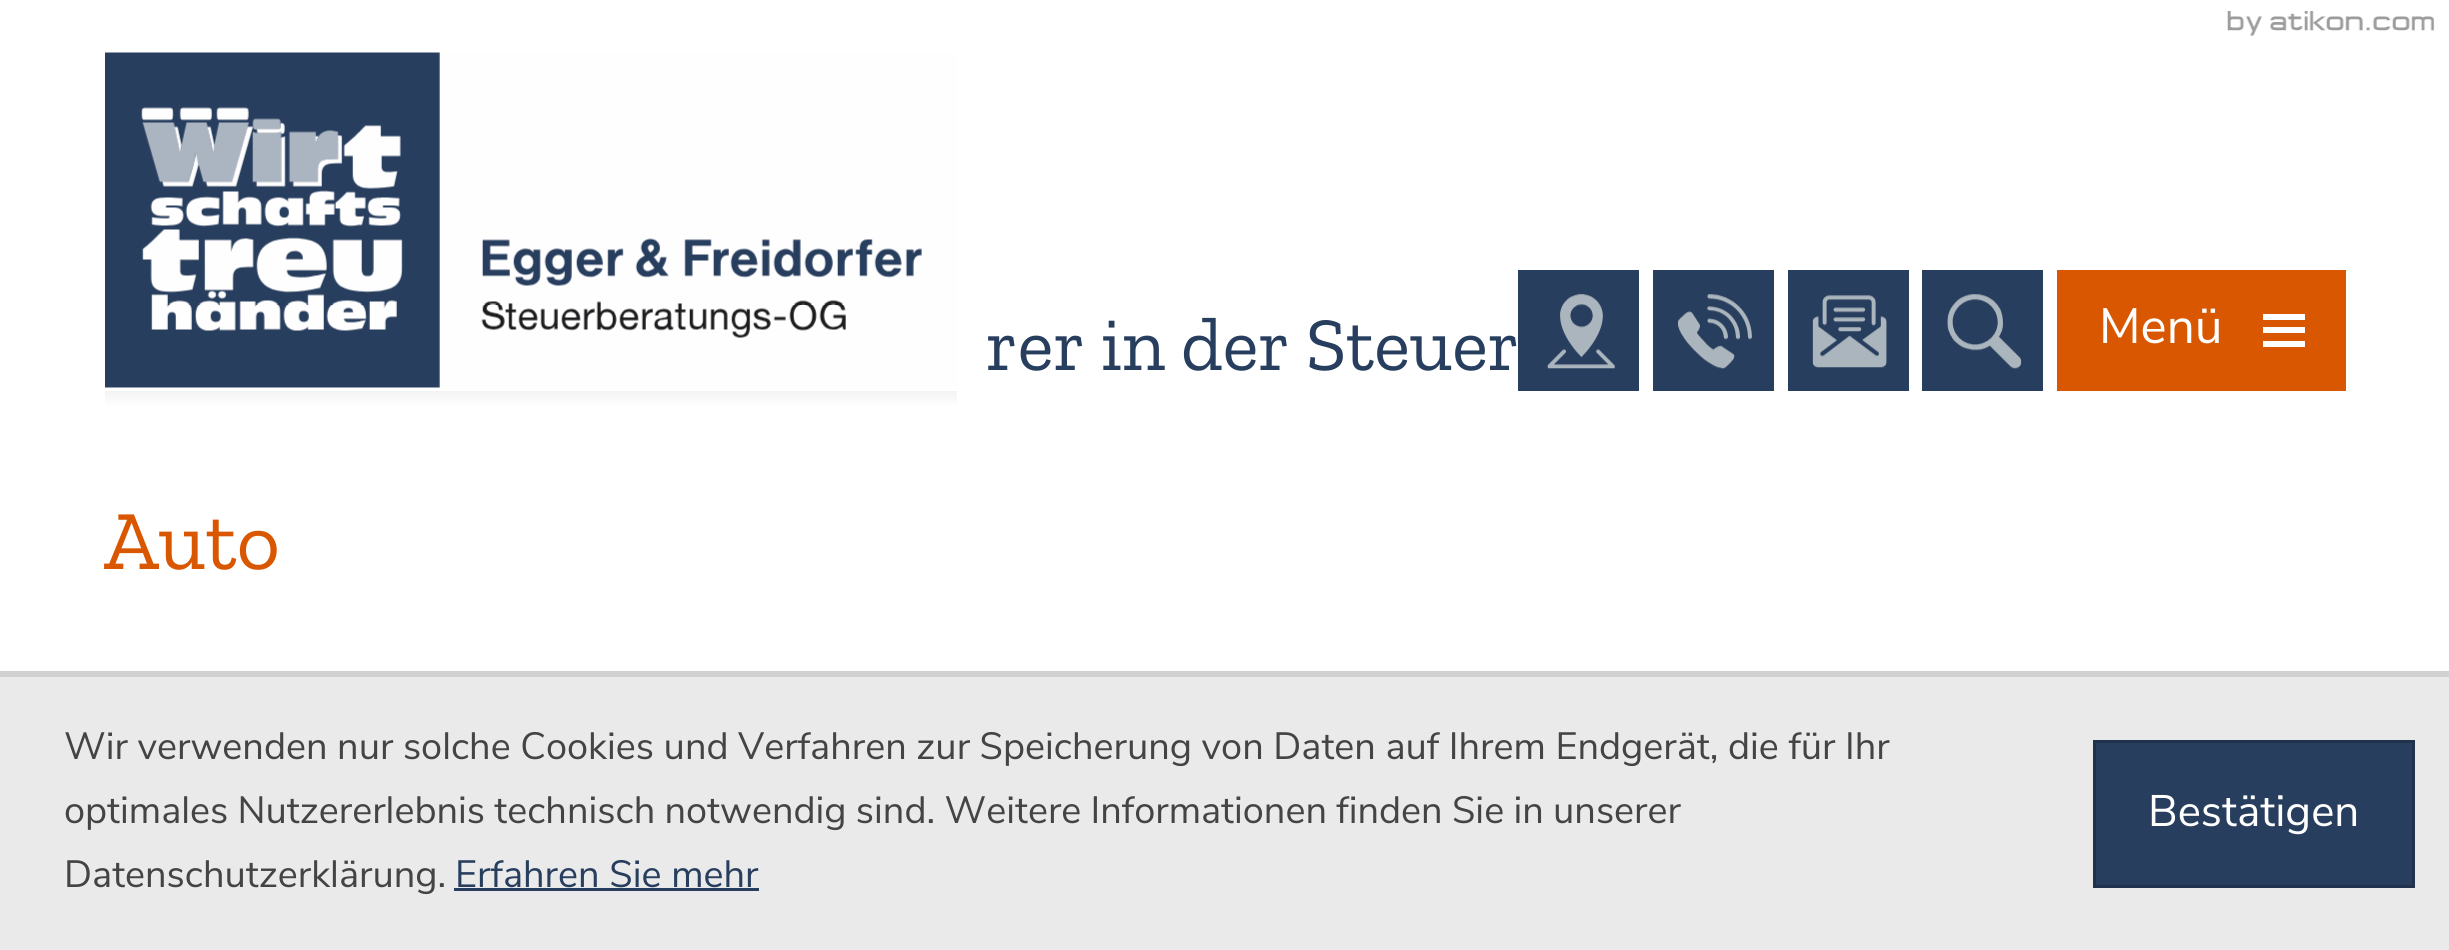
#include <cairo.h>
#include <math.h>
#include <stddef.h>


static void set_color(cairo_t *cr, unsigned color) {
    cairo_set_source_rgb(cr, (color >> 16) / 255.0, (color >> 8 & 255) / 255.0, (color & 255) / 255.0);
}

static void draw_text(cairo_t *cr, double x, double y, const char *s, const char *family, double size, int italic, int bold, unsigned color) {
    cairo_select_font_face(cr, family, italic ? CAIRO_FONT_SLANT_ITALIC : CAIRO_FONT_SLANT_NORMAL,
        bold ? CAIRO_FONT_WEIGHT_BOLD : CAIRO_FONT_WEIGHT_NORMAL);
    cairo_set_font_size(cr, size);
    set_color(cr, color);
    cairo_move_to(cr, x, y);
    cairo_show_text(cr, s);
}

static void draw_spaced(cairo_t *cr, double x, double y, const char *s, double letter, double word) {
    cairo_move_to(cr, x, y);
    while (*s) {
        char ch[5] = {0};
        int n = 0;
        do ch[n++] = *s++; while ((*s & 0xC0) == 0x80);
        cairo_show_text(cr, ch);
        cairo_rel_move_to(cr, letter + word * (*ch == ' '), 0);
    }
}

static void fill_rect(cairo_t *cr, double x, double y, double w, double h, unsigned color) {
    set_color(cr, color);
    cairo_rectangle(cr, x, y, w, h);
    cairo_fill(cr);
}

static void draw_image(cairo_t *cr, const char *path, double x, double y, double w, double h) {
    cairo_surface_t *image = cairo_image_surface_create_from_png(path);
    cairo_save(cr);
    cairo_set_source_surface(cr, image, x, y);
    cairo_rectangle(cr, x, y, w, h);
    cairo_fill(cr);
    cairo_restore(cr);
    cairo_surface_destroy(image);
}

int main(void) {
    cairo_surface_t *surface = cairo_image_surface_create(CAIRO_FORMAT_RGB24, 2449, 950);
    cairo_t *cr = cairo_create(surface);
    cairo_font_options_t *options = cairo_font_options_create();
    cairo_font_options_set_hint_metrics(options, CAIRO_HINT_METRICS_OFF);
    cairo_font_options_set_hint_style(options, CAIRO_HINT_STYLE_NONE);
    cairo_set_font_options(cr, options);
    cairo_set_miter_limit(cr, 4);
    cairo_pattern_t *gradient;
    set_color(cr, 0xFFFFFF);
    cairo_paint(cr);
    cairo_select_font_face(cr, "Zilla Slab", CAIRO_FONT_SLANT_NORMAL, CAIRO_FONT_WEIGHT_NORMAL);
    cairo_set_font_size(cr, 75.75);
    set_color(cr, 0x283E5E);
    draw_spaced(cr, 986, 370, "rer in der Steuer", 0, -1.5);
    draw_image(cr, "assets/img1.png", 2227, 11, 208, 25);
    draw_image(cr, "assets/img2.png", 105, 52, 853, 336);
    gradient = cairo_pattern_create_linear(531, 390, 531, 407);
    cairo_pattern_add_color_stop_rgba(gradient, 0, 0.949, 0.949, 0.949, 1);
    cairo_pattern_add_color_stop_rgba(gradient, 1, 1, 1, 1, 1);
    cairo_set_source(cr, gradient);
    cairo_pattern_destroy(gradient);
    cairo_rectangle(cr, 105, 391, 852, 13);
    cairo_fill(cr);
    fill_rect(cr, 1518, 270, 121, 121, 0x283E5E);
    draw_image(cr, "assets/img3.png", 1547, 294, 68, 75);
    fill_rect(cr, 1653, 270, 121, 121, 0x283E5E);
    draw_image(cr, "assets/img4.png", 1678, 294, 74, 75);
    fill_rect(cr, 1788, 270, 121, 121, 0x283E5E);
    draw_image(cr, "assets/img5.png", 1812, 295, 75, 73);
    fill_rect(cr, 1922, 270, 121, 121, 0x283E5E);
    draw_image(cr, "assets/img6.png", 1947, 294, 75, 75);
    fill_rect(cr, 2057, 270, 289, 121, 0xD95700);
    draw_text(cr, 2099, 343, "Menü", "Nunito Sans", 49.5, 0, 0, 0xFFFFFF);
    fill_rect(cr, 2263, 314, 42, 6, 0xFFFFFF);
    fill_rect(cr, 2263, 327, 42, 6, 0xFFFFFF);
    fill_rect(cr, 2263, 341, 42, 6, 0xFFFFFF);
    draw_text(cr, 104, 569, "Auto", "Zilla Slab", 84, 0, 0, 0xD95700);
    fill_rect(cr, 0, 677, 2449, 273, 0xEAEAEA);
    fill_rect(cr, 0, 671, 2449, 6, 0xD1D1D1);
    cairo_select_font_face(cr, "Nunito Sans", CAIRO_FONT_SLANT_NORMAL, CAIRO_FONT_WEIGHT_NORMAL);
    cairo_set_font_size(cr, 37.95);
    set_color(cr, 0x444444);
    draw_spaced(cr, 64, 759, "Wir verwenden nur solche Cookies und Verfahren zur Speicherung von Daten auf Ihrem Endgerät, die für Ihr", 0, -0.2);
    draw_spaced(cr, 64, 823, "optimales Nutzererlebnis technisch notwendig sind. Weitere Informationen finden Sie in unserer", 0, -0.5);
    draw_text(cr, 64, 887, "Datenschutzerklärung.", "Nunito Sans", 37.95, 0, 0, 0x444444);
    draw_text(cr, 455, 887, "Erfahren Sie mehr", "Nunito Sans", 37.95, 0, 0, 0x283E5E);
    fill_rect(cr, 454, 888, 305, 3, 0x283E5E);
    cairo_rectangle(cr, 2094.5, 741.5, 319, 145);
    cairo_fill_preserve(cr);
    set_color(cr, 0x20324C);
    cairo_set_line_width(cr, 3);
    cairo_stroke(cr);
    draw_text(cr, 2148, 826, "Bestätigen", "Nunito Sans", 44, 0, 0, 0xFFFFFF);
    cairo_surface_write_to_png(surface, "output.png");
    cairo_font_options_destroy(options);
    cairo_destroy(cr);
    cairo_surface_destroy(surface);
    return 0;
}
